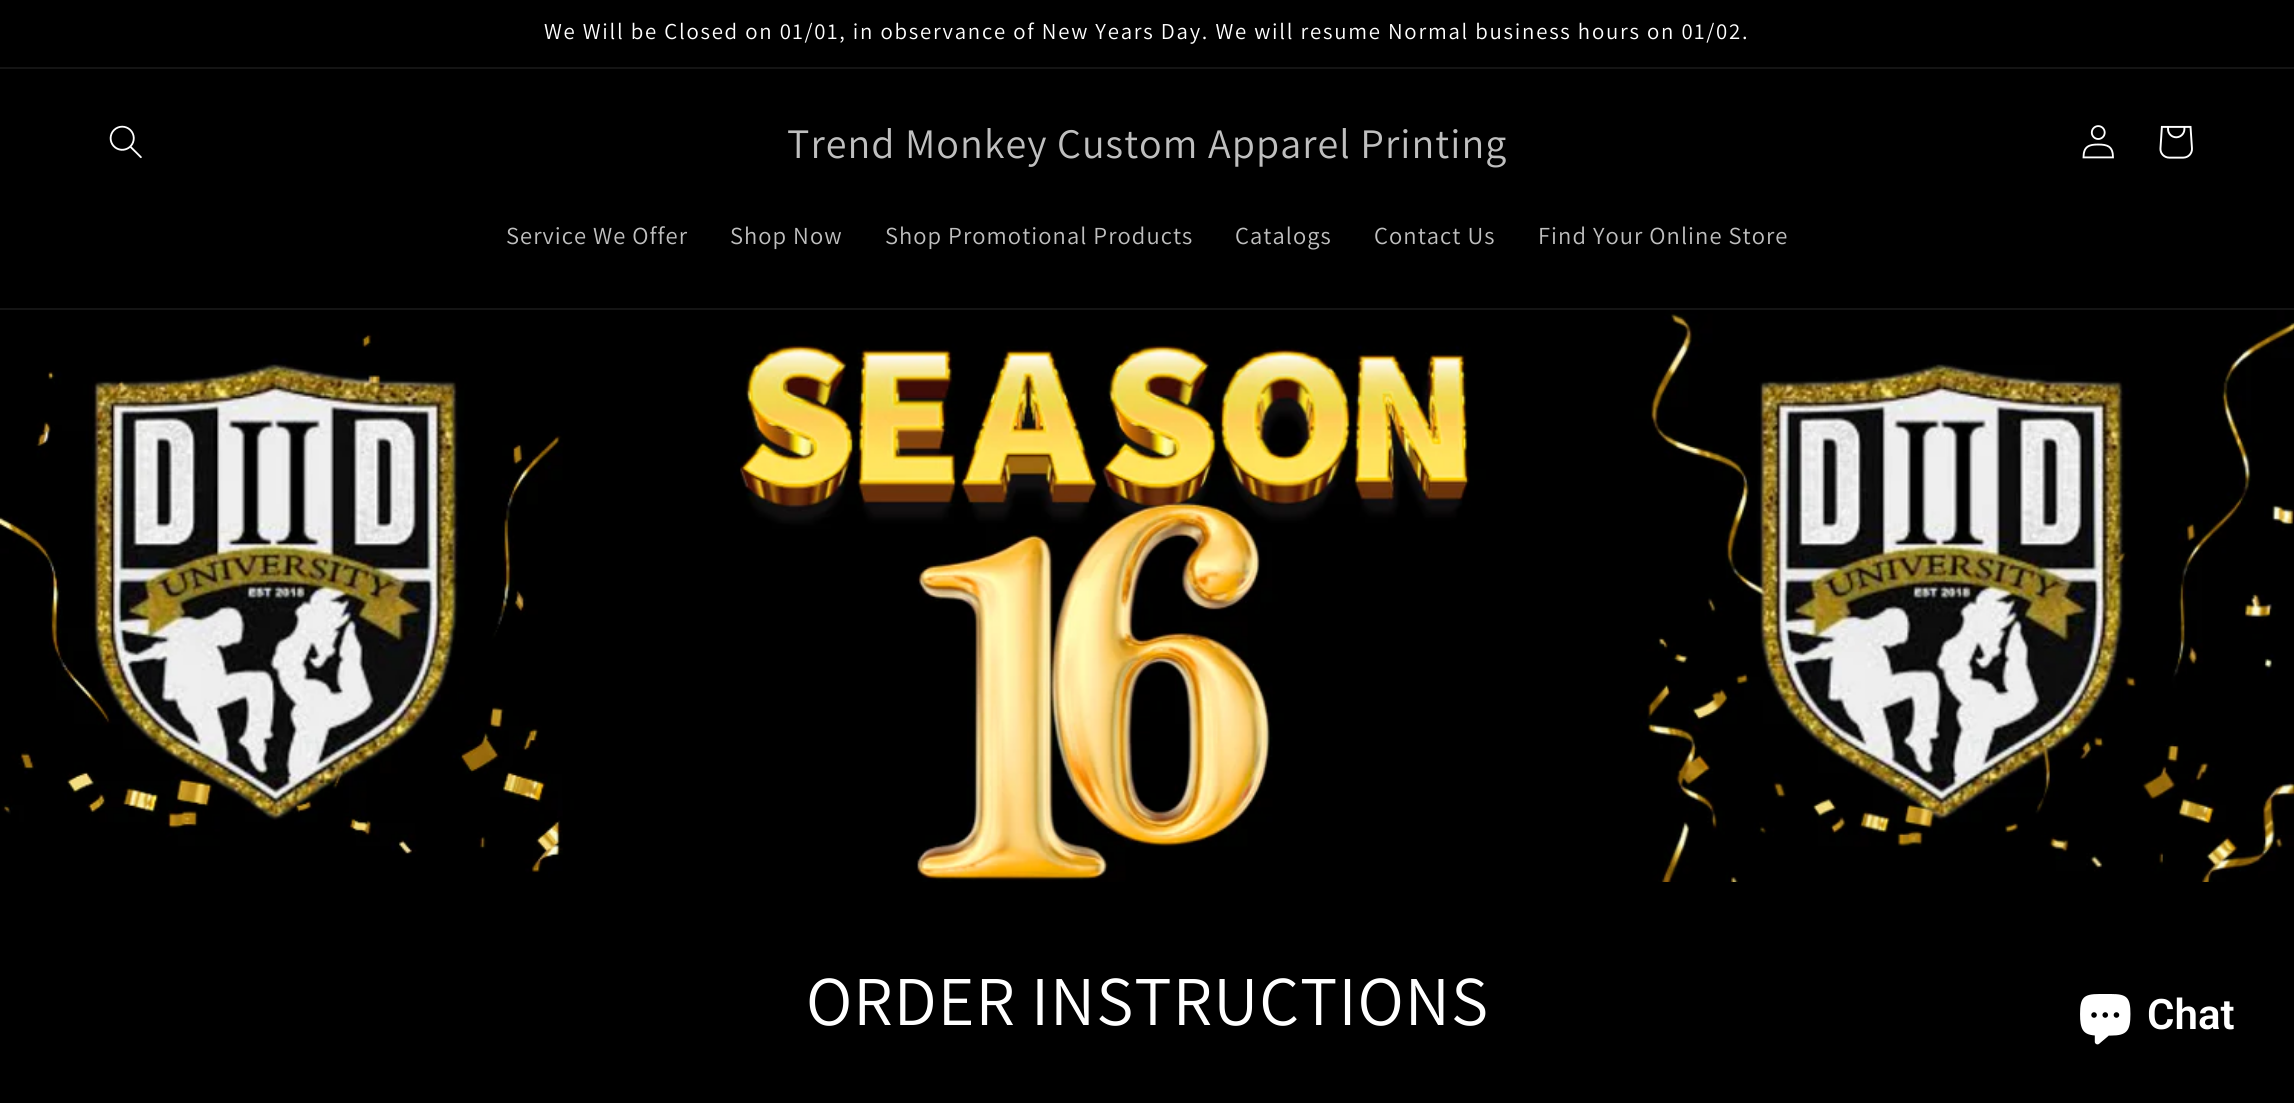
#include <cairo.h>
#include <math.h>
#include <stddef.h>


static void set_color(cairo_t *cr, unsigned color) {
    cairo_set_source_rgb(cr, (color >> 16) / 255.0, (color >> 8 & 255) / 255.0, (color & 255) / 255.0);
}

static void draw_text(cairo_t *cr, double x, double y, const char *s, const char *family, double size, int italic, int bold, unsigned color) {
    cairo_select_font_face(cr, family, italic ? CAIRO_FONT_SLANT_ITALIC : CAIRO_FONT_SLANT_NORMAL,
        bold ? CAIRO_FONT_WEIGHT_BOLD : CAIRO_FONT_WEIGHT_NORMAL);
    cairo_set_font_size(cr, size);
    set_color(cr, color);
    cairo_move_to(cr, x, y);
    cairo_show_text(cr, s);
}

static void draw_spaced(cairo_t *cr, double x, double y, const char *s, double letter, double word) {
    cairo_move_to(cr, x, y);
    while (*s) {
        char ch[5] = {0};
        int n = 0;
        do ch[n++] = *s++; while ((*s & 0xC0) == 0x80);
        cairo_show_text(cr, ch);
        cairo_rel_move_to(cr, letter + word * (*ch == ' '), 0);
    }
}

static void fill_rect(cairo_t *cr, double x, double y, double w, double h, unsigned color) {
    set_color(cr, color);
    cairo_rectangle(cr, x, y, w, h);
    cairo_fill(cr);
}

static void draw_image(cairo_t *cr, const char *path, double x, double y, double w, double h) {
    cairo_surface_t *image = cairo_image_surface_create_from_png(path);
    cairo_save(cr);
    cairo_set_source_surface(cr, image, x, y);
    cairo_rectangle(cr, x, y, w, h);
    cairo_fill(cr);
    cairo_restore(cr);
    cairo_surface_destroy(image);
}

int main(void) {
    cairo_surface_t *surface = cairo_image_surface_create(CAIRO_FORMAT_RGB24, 2294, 1103);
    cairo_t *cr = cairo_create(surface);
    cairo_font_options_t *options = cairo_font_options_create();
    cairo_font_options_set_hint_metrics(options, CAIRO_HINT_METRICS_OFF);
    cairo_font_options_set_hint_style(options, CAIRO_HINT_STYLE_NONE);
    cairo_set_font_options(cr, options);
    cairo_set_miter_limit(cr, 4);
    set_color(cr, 0x000000);
    cairo_paint(cr);
    fill_rect(cr, 0, 67, 2294, 2, 0x141414);
    cairo_select_font_face(cr, "Assistant", CAIRO_FONT_SLANT_NORMAL, CAIRO_FONT_WEIGHT_NORMAL);
    cairo_set_font_size(cr, 22.75);
    set_color(cr, 0xFFFFFF);
    draw_spaced(cr, 544, 39, "We Will be Closed on 01/01, in observance of New Years Day. We will resume Normal business hours on 01/02.", 1.75, 0);
    fill_rect(cr, 0, 308, 2294, 2, 0x141414);
    draw_image(cr, "assets/img1.png", 109, 125, 33, 34);
    cairo_set_font_size(cr, 42);
    set_color(cr, 0xBFBFBF);
    draw_spaced(cr, 787, 158, "Trend Monkey Custom Apparel Printing", 1.05, 0);
    draw_image(cr, "assets/img2.png", 2082, 125, 32, 34);
    draw_image(cr, "assets/img3.png", 2159, 125, 34, 34);
    cairo_set_font_size(cr, 24.5);
    draw_spaced(cr, 506, 244, "Service We Offer", 1.05, 0);
    draw_spaced(cr, 730, 244, "Shop Now", 1.05, 0);
    draw_spaced(cr, 885, 244, "Shop Promotional Products", 1.05, 0);
    draw_spaced(cr, 1235, 244, "Catalogs", 1.05, 0);
    draw_spaced(cr, 1374, 244, "Contact Us", 1.05, 0);
    draw_spaced(cr, 1538, 244, "Find Your Online Store", 1.05, 0);
    draw_image(cr, "assets/img4.png", 0, 310, 2294, 572);
    cairo_set_font_size(cr, 70);
    set_color(cr, 0xFFFFFF);
    draw_spaced(cr, 806, 1025, "ORDER INSTRUCTIONS", 1.05, 0);
    draw_image(cr, "assets/img5.png", 2080, 994, 51, 51);
    draw_text(cr, 2147, 1029, "Chat", "Roboto SemiBold", 42, 0, 0, 0xFFFFFF);
    cairo_surface_write_to_png(surface, "output.png");
    cairo_font_options_destroy(options);
    cairo_destroy(cr);
    cairo_surface_destroy(surface);
    return 0;
}
